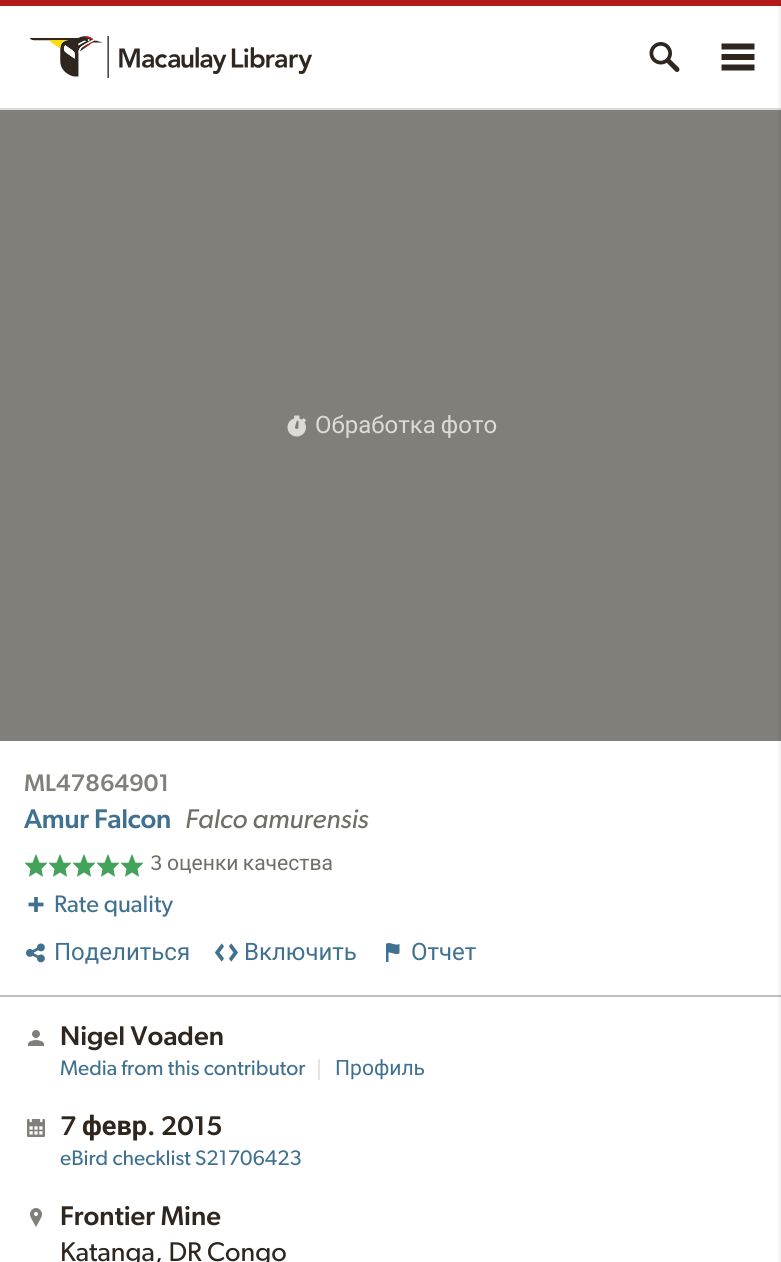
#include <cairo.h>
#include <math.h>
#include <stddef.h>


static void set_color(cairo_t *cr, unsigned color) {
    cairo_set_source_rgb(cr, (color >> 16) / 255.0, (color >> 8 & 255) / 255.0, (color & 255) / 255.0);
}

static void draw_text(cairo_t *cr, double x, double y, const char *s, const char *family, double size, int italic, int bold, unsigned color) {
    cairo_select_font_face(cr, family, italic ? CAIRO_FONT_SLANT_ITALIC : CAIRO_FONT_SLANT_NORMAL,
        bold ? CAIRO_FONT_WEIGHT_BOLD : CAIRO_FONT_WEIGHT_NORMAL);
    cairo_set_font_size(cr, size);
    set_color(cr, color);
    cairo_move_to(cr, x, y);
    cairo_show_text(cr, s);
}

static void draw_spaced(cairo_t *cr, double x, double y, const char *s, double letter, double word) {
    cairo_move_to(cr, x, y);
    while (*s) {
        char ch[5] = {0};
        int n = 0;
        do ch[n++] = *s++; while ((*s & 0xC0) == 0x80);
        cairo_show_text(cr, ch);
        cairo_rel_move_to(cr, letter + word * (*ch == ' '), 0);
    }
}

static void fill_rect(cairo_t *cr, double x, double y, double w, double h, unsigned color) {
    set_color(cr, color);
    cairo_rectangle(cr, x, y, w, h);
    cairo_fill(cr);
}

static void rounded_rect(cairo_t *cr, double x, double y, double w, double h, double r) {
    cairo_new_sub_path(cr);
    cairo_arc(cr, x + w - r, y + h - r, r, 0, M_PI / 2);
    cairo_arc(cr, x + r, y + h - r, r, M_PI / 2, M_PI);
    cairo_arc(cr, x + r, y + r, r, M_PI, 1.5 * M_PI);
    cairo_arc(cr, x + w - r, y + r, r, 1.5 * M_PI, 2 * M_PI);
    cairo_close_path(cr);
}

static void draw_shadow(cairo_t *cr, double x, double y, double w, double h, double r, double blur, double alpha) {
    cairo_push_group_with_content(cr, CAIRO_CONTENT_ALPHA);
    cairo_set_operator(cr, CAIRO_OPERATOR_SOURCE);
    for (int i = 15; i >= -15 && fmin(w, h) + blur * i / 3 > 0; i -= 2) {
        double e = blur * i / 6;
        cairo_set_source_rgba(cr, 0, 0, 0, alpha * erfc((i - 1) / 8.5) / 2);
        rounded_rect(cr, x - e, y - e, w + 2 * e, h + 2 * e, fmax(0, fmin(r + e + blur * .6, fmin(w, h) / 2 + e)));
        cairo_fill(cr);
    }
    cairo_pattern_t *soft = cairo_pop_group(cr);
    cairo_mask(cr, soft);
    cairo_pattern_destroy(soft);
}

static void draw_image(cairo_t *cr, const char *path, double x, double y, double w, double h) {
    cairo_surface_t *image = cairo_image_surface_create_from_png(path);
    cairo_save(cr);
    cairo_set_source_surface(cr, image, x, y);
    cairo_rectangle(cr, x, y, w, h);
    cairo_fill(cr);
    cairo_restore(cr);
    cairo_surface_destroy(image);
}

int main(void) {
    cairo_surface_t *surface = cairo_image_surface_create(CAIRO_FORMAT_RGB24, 781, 1262);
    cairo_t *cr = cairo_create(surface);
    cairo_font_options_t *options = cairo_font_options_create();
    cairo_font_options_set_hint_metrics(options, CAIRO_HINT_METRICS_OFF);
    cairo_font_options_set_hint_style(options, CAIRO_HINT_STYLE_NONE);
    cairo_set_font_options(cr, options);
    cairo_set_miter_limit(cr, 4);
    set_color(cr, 0xFFFFFF);
    cairo_paint(cr);
    fill_rect(cr, 0, 0, 781, 6, 0xB31B1B);
    fill_rect(cr, 0, 108, 781, 2, 0xDBDBD9);
    draw_image(cr, "assets/img1.png", 30, 36, 282, 42);
    draw_image(cr, "assets/img2.png", 649, 42, 31, 30);
    set_color(cr, 0x2E261F);
    cairo_set_fill_rule(cr, CAIRO_FILL_RULE_EVEN_ODD);
    cairo_new_path(cr);
    cairo_move_to(cr, 721.5, 43.5);
    cairo_line_to(cr, 754.5, 43.5);
    cairo_line_to(cr, 754.5, 49.5);
    cairo_line_to(cr, 721.5, 49.5);
    cairo_close_path(cr);
    cairo_move_to(cr, 721.5, 54);
    cairo_line_to(cr, 754.5, 54);
    cairo_line_to(cr, 754.5, 60);
    cairo_line_to(cr, 721.5, 60);
    cairo_close_path(cr);
    cairo_move_to(cr, 721.5, 64.5);
    cairo_line_to(cr, 754.5, 64.5);
    cairo_line_to(cr, 754.5, 70.5);
    cairo_line_to(cr, 721.5, 70.5);
    cairo_close_path(cr);
    cairo_fill(cr);
    fill_rect(cr, 0, 110, 781, 631, 0x817F79);
    fill_rect(cr, 0, 995, 781, 2, 0xBFBFBF);
    set_color(cr, 0x000000);
    draw_shadow(cr, 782, 3, 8, 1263, 0, 3, 0.2);
    draw_image(cr, "assets/img3.png", 287, 415, 19, 22);
    cairo_select_font_face(cr, "Roboto", CAIRO_FONT_SLANT_NORMAL, CAIRO_FONT_WEIGHT_NORMAL);
    cairo_set_font_size(cr, 24);
    set_color(cr, 0xDCDCD5);
    draw_spaced(cr, 315, 433, "Обработка фото", 0, -1);
    cairo_select_font_face(cr, "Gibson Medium", CAIRO_FONT_SLANT_NORMAL, CAIRO_FONT_WEIGHT_NORMAL);
    set_color(cr, 0x817F79);
    draw_spaced(cr, 24, 791, "ML47864901", 0.1, 0);
    cairo_set_font_size(cr, 27.1);
    set_color(cr, 0x40718F);
    draw_spaced(cr, 24, 828, "Amur Falcon", -0.25, 0);
    draw_text(cr, 185, 828, "Falco amurensis", "Gibson", 27.1, 1, 0, 0x6F6E67);
    draw_image(cr, "assets/img4.png", 25, 854, 22, 23);
    draw_image(cr, "assets/img4.png", 49, 854, 22, 23);
    draw_image(cr, "assets/img4.png", 73, 854, 22, 23);
    draw_image(cr, "assets/img4.png", 97, 854, 22, 23);
    draw_image(cr, "assets/img4.png", 121, 854, 22, 23);
    draw_text(cr, 150, 870, "3", "Gibson", 21.1, 0, 0, 0x6F6E67);
    cairo_select_font_face(cr, "Roboto", CAIRO_FONT_SLANT_NORMAL, CAIRO_FONT_WEIGHT_NORMAL);
    draw_spaced(cr, 167, 870, "оценки качества", 0, -1);
    draw_image(cr, "assets/img5.png", 28, 897, 16, 15);
    draw_text(cr, 54, 912, "Rate quality", "Gibson", 24, 0, 0, 0x40718F);
    draw_image(cr, "assets/img6.png", 26, 943, 19, 20);
    draw_text(cr, 54, 960, "Поделиться", "Roboto", 24, 0, 0, 0x40718F);
    draw_image(cr, "assets/img7.png", 215, 943, 23, 19);
    draw_text(cr, 244, 960, "Включить", "Roboto", 24, 0, 0, 0x40718F);
    draw_image(cr, "assets/img8.png", 386, 943, 14, 19);
    draw_text(cr, 411, 960, "Отчет", "Roboto", 24, 0, 0, 0x40718F);
    draw_image(cr, "assets/img9.png", 28, 1030, 16, 16);
    draw_text(cr, 60, 1045, "Nigel Voaden", "Gibson Medium", 27.1, 0, 0, 0x2E261F);
    draw_text(cr, 60, 1075, "Media from this contributor", "Gibson", 21.1, 0, 0, 0x40718F);
    fill_rect(cr, 318, 1059, 2, 21, 0xE5E3DC);
    draw_text(cr, 335, 1075, "Профиль", "Roboto", 21.1, 0, 0, 0x40718F);
    draw_image(cr, "assets/img10.png", 27, 1119, 18, 18);
    draw_text(cr, 60, 1135, "7", "Gibson Medium", 27.1, 0, 0, 0x2E261F);
    draw_text(cr, 82, 1135, "февр", "Roboto", 27.1, 0, 1, 0x2E261F);
    draw_text(cr, 147, 1135, ". 2015", "Gibson Medium", 27.1, 0, 0, 0x2E261F);
    draw_text(cr, 60, 1165, "eBird checklist S21706423", "Gibson", 21.1, 0, 0, 0x40718F);
    draw_image(cr, "assets/img11.png", 30, 1208, 12, 19);
    draw_text(cr, 60, 1225, "Frontier Mine", "Gibson Medium", 27.1, 0, 0, 0x2E261F);
    draw_text(cr, 60, 1261, "Katanga, DR Congo", "Gibson", 27.1, 0, 0, 0x2E261F);
    cairo_surface_write_to_png(surface, "output.png");
    cairo_font_options_destroy(options);
    cairo_destroy(cr);
    cairo_surface_destroy(surface);
    return 0;
}
